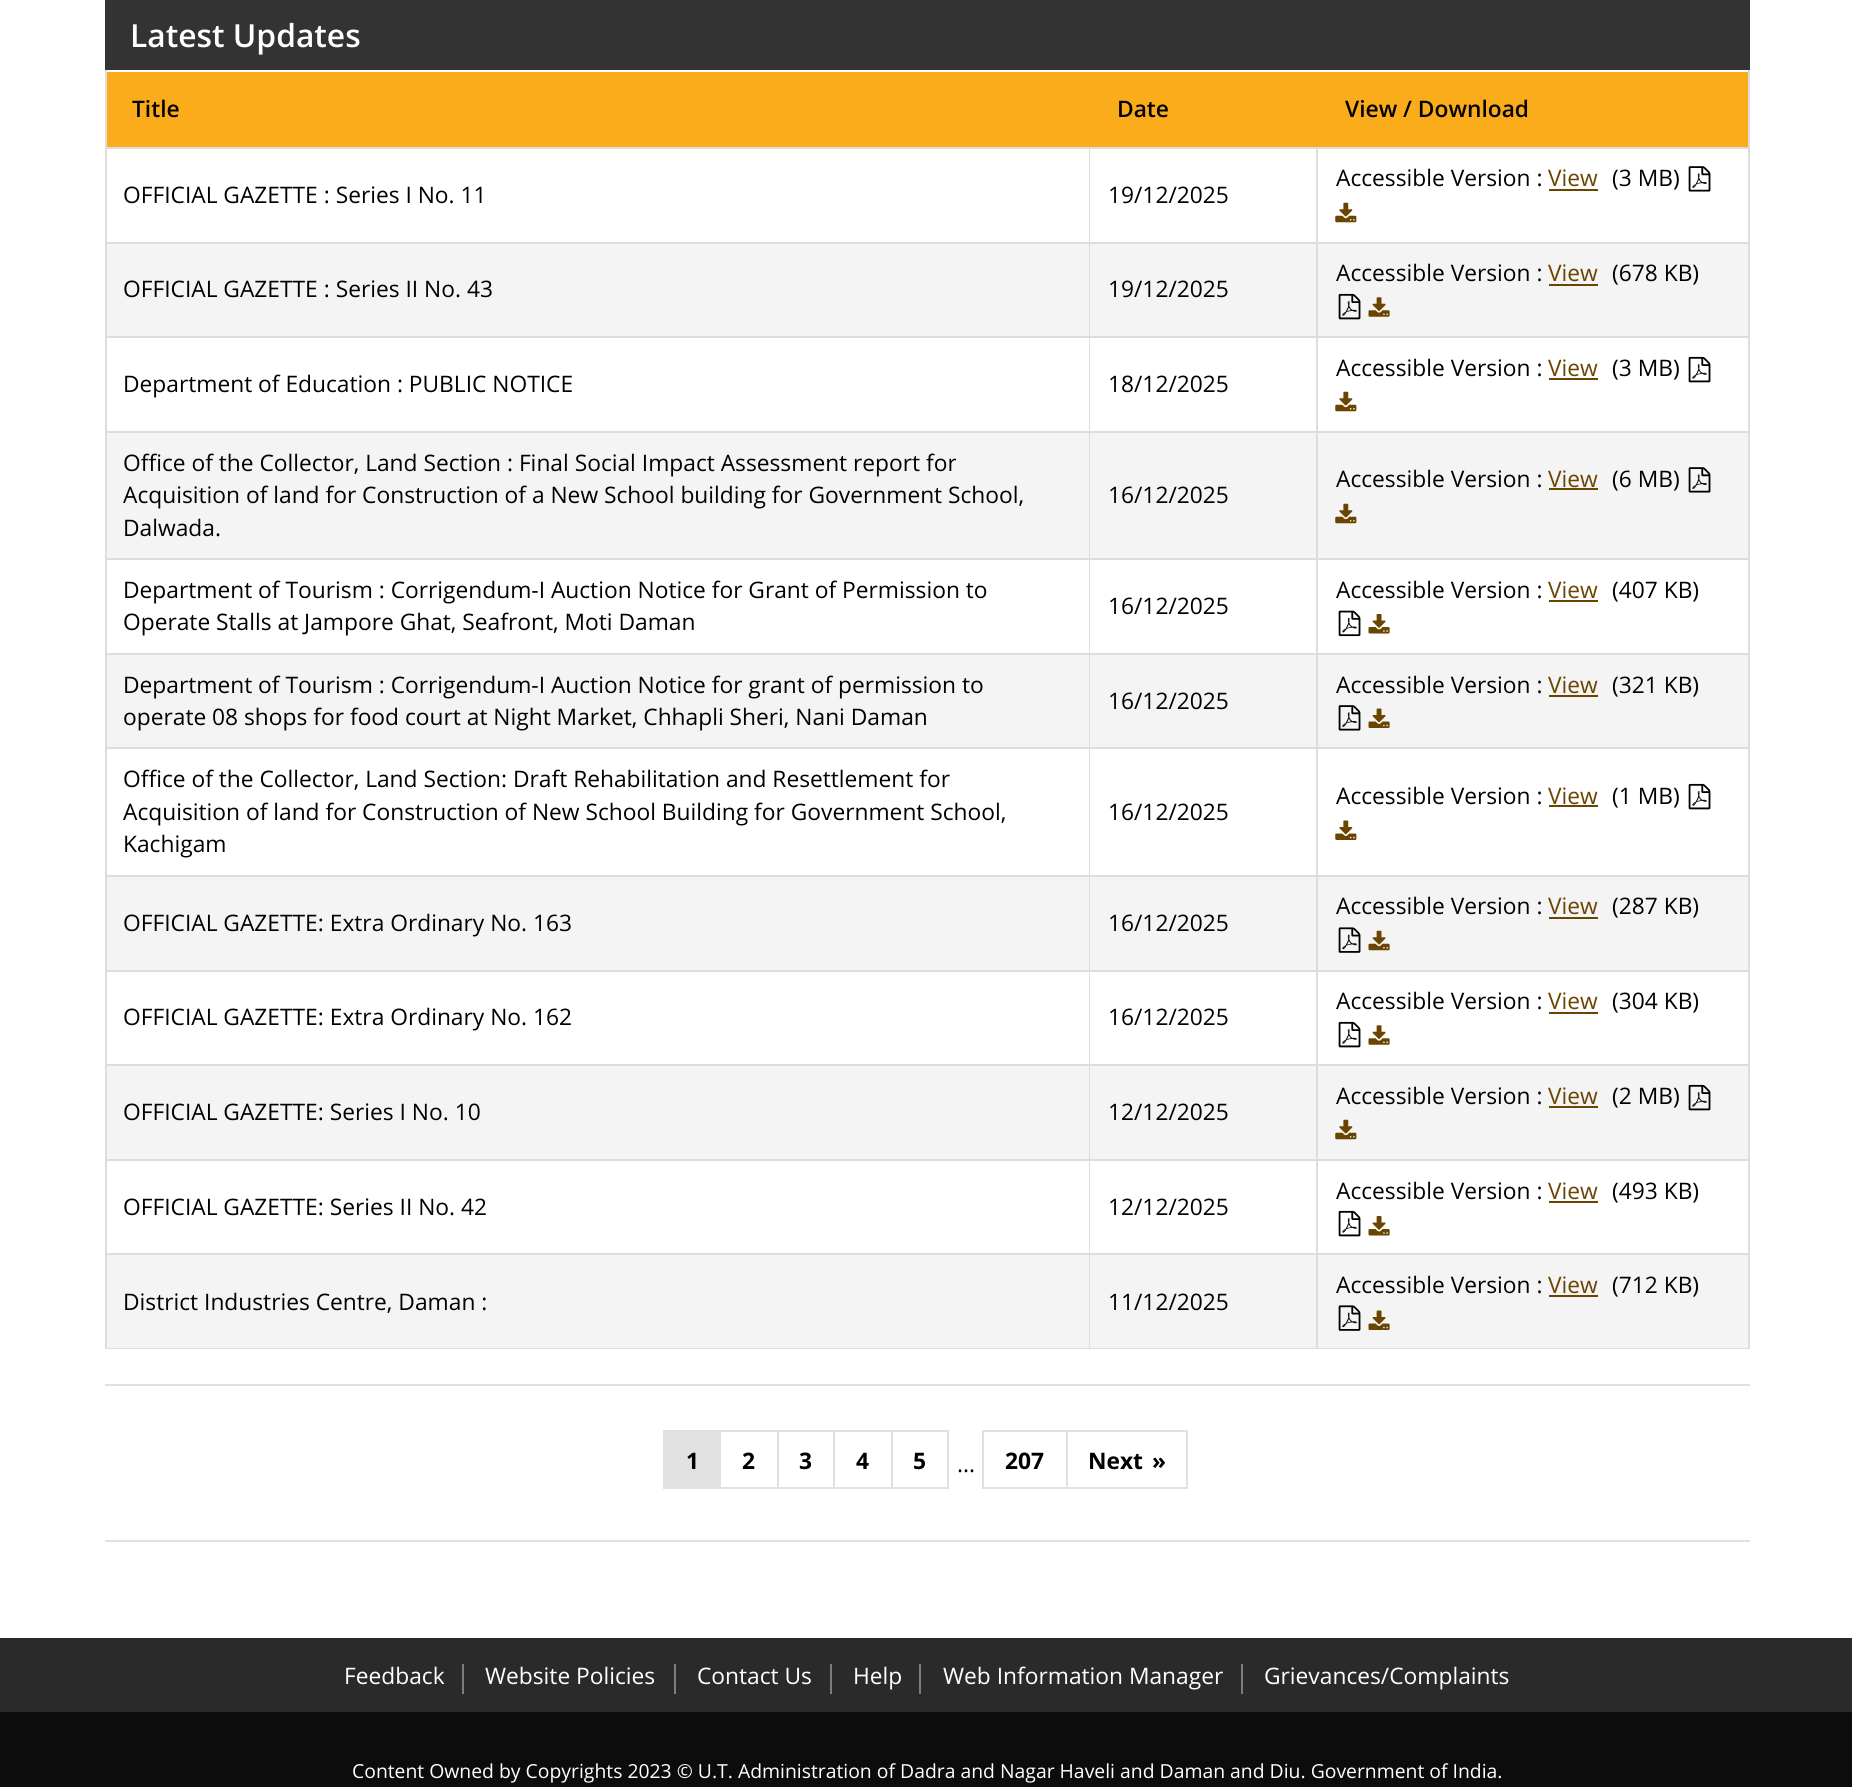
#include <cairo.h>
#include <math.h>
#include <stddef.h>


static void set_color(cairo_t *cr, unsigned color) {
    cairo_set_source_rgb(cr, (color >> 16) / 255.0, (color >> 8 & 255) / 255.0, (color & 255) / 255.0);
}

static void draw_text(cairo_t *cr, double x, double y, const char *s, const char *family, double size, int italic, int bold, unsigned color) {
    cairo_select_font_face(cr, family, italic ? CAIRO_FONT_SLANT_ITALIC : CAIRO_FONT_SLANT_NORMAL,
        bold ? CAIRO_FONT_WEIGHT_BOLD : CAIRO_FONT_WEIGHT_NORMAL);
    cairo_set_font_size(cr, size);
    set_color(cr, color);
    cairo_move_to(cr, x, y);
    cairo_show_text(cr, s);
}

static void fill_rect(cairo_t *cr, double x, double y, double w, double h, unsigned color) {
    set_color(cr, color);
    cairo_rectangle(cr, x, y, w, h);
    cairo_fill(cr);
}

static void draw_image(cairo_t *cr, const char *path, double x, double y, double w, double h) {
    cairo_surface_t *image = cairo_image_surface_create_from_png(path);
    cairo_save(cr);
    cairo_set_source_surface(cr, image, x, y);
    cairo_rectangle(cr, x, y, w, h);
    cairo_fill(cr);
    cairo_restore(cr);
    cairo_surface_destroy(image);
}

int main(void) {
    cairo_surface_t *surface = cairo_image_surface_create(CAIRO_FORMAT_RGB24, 1852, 1787);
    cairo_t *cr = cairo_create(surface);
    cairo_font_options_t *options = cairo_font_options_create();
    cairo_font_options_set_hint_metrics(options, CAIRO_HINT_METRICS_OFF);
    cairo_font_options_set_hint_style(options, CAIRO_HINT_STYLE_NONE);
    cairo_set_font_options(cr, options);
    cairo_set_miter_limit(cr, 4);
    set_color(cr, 0xFFFFFF);
    cairo_paint(cr);
    cairo_rectangle(cr, 106, 1, 1643, 1347);
    set_color(cr, 0xDDDDDD);
    cairo_stroke(cr);
    fill_rect(cr, 105, 0, 1645, 70, 0x333333);
    draw_text(cr, 130, 47, "Latest Updates", "Open Sans SemiBold", 31.75, 0, 0, 0xFFFFFF);
    fill_rect(cr, 107, 72, 1641, 75, 0xFBAC1B);
    draw_text(cr, 132, 117, "Title", "Open Sans SemiBold", 22.75, 0, 0, 0x000000);
    draw_text(cr, 1117, 117, "Date", "Open Sans SemiBold", 22.75, 0, 0, 0x000000);
    draw_text(cr, 1345, 117, "View / Download", "Open Sans SemiBold", 22.75, 0, 0, 0x000000);
    draw_text(cr, 1336, 186, "Accessible Version :", "Open Sans", 22.75, 0, 0, 0x000000);
    draw_text(cr, 1548, 186, "View", "Open Sans", 22.75, 0, 0, 0x6A4501);
    fill_rect(cr, 1549, 189, 49, 2, 0x6A4501);
    draw_text(cr, 1612, 186, "(3 MB)", "Open Sans", 22.75, 0, 0, 0x000000);
    draw_image(cr, "assets/img1.png", 1688, 166, 23, 26);
    draw_image(cr, "assets/img2.png", 1335, 202, 22, 21);
    fill_rect(cr, 107, 147, 1641, 2, 0xDDDDDD);
    fill_rect(cr, 1089, 147, 1, 95, 0xDDDDDD);
    draw_text(cr, 123, 203, "OFFICIAL GAZETTE : Series I No. 11", "Open Sans", 22.75, 0, 0, 0x000000);
    fill_rect(cr, 1316, 147, 2, 95, 0xDDDDDD);
    draw_text(cr, 1108, 203, "19/12/2025", "Open Sans", 22.75, 0, 0, 0x000000);
    fill_rect(cr, 1318, 244, 430, 92, 0xF4F4F4);
    draw_text(cr, 1336, 281, "Accessible Version :", "Open Sans", 22.75, 0, 0, 0x000000);
    draw_text(cr, 1548, 281, "View", "Open Sans", 22.75, 0, 0, 0x6A4501);
    fill_rect(cr, 1549, 284, 49, 2, 0x6A4501);
    draw_text(cr, 1612, 281, "(678 KB)", "Open Sans", 22.75, 0, 0, 0x000000);
    draw_image(cr, "assets/img3.png", 1338, 293, 23, 27);
    draw_image(cr, "assets/img4.png", 1368, 297, 22, 20);
    fill_rect(cr, 107, 244, 982, 92, 0xF4F4F4);
    fill_rect(cr, 107, 242, 1641, 2, 0xDDDDDD);
    fill_rect(cr, 1089, 242, 1, 94, 0xDDDDDD);
    draw_text(cr, 123, 297, "OFFICIAL GAZETTE : Series II No. 43", "Open Sans", 22.75, 0, 0, 0x000000);
    fill_rect(cr, 1090, 244, 226, 92, 0xF4F4F4);
    fill_rect(cr, 1316, 242, 2, 94, 0xDDDDDD);
    draw_text(cr, 1108, 297, "19/12/2025", "Open Sans", 22.75, 0, 0, 0x000000);
    draw_text(cr, 1336, 376, "Accessible Version :", "Open Sans", 22.75, 0, 0, 0x000000);
    draw_text(cr, 1548, 376, "View", "Open Sans", 22.75, 0, 0, 0x6A4501);
    fill_rect(cr, 1549, 378, 49, 2, 0x6A4501);
    draw_text(cr, 1612, 376, "(3 MB)", "Open Sans", 22.75, 0, 0, 0x000000);
    draw_image(cr, "assets/img5.png", 1688, 356, 23, 27);
    draw_image(cr, "assets/img2.png", 1335, 391, 22, 21);
    fill_rect(cr, 107, 336, 1641, 2, 0xDDDDDD);
    fill_rect(cr, 1089, 336, 1, 95, 0xDDDDDD);
    draw_text(cr, 123, 392, "Department of Education : PUBLIC NOTIСE", "Open Sans", 22.75, 0, 0, 0x000000);
    fill_rect(cr, 1316, 336, 2, 95, 0xDDDDDD);
    draw_text(cr, 1108, 392, "18/12/2025", "Open Sans", 22.75, 0, 0, 0x000000);
    fill_rect(cr, 107, 433, 982, 125, 0xF4F4F4);
    fill_rect(cr, 107, 431, 1641, 2, 0xDDDDDD);
    fill_rect(cr, 1089, 431, 1, 127, 0xDDDDDD);
    draw_text(cr, 123, 471, "Office of the Collector, Land Section : Final Social Impact Assessment report for", "Open Sans", 22.75, 0, 0, 0x000000);
    draw_text(cr, 123, 503, "Acquisition of land for Construction of a New School building for Government School,", "Open Sans", 22.75, 0, 0, 0x000000);
    draw_text(cr, 123, 536, "Dalwada.", "Open Sans", 22.75, 0, 0, 0x000000);
    fill_rect(cr, 1318, 433, 430, 125, 0xF4F4F4);
    draw_text(cr, 1336, 487, "Accessible Version :", "Open Sans", 22.75, 0, 0, 0x000000);
    draw_text(cr, 1548, 487, "View", "Open Sans", 22.75, 0, 0, 0x6A4501);
    fill_rect(cr, 1549, 488, 49, 2, 0x6A4501);
    draw_text(cr, 1612, 487, "(6 MB)", "Open Sans", 22.75, 0, 0, 0x000000);
    draw_image(cr, "assets/img6.png", 1688, 467, 23, 26);
    draw_image(cr, "assets/img7.png", 1335, 503, 22, 21);
    fill_rect(cr, 1090, 433, 226, 125, 0xF4F4F4);
    fill_rect(cr, 1316, 431, 2, 127, 0xDDDDDD);
    draw_text(cr, 1108, 503, "16/12/2025", "Open Sans", 22.75, 0, 0, 0x000000);
    fill_rect(cr, 107, 558, 1641, 2, 0xDDDDDD);
    fill_rect(cr, 1089, 558, 1, 95, 0xDDDDDD);
    draw_text(cr, 123, 598, "Department of Tourism : Corrigendum-I Auction Notice for Grant of Permission to", "Open Sans", 22.75, 0, 0, 0x000000);
    draw_text(cr, 123, 630, "Operate Stalls at Jampore Ghat, Seafront, Moti Daman", "Open Sans", 22.75, 0, 0, 0x000000);
    draw_text(cr, 1336, 598, "Accessible Version :", "Open Sans", 22.75, 0, 0, 0x000000);
    draw_text(cr, 1548, 598, "View", "Open Sans", 22.75, 0, 0, 0x6A4501);
    fill_rect(cr, 1549, 600, 49, 2, 0x6A4501);
    draw_text(cr, 1612, 598, "(407 KB)", "Open Sans", 22.75, 0, 0, 0x000000);
    draw_image(cr, "assets/img8.png", 1338, 610, 23, 27);
    draw_image(cr, "assets/img9.png", 1368, 614, 22, 20);
    fill_rect(cr, 1316, 558, 2, 95, 0xDDDDDD);
    draw_text(cr, 1108, 614, "16/12/2025", "Open Sans", 22.75, 0, 0, 0x000000);
    fill_rect(cr, 107, 655, 982, 92, 0xF4F4F4);
    fill_rect(cr, 107, 653, 1641, 2, 0xDDDDDD);
    fill_rect(cr, 1089, 653, 1, 94, 0xDDDDDD);
    draw_text(cr, 123, 693, "Department of Tourism : Corrigendum-I Auction Notice for grant of permission to", "Open Sans", 22.75, 0, 0, 0x000000);
    draw_text(cr, 123, 725, "operate 08 shops for food court at Night Market, Chhapli Sheri, Nani Daman", "Open Sans", 22.75, 0, 0, 0x000000);
    fill_rect(cr, 1318, 655, 430, 92, 0xF4F4F4);
    draw_text(cr, 1336, 693, "Accessible Version :", "Open Sans", 22.75, 0, 0, 0x000000);
    draw_text(cr, 1548, 693, "View", "Open Sans", 22.75, 0, 0, 0x6A4501);
    fill_rect(cr, 1549, 695, 49, 2, 0x6A4501);
    draw_text(cr, 1612, 693, "(321 KB)", "Open Sans", 22.75, 0, 0, 0x000000);
    draw_image(cr, "assets/img6.png", 1338, 705, 23, 26);
    draw_image(cr, "assets/img10.png", 1368, 708, 22, 20);
    fill_rect(cr, 1090, 655, 226, 92, 0xF4F4F4);
    fill_rect(cr, 1316, 653, 2, 94, 0xDDDDDD);
    draw_text(cr, 1108, 709, "16/12/2025", "Open Sans", 22.75, 0, 0, 0x000000);
    fill_rect(cr, 107, 747, 1641, 2, 0xDDDDDD);
    fill_rect(cr, 1089, 747, 1, 128, 0xDDDDDD);
    draw_text(cr, 123, 787, "Office of the Collector, Land Section: Draft Rehabilitation and Resettlement for", "Open Sans", 22.75, 0, 0, 0x000000);
    draw_text(cr, 123, 820, "Acquisition of land for Construction of New School Building for Government School,", "Open Sans", 22.75, 0, 0, 0x000000);
    draw_text(cr, 123, 852, "Kachigam", "Open Sans", 22.75, 0, 0, 0x000000);
    draw_text(cr, 1336, 804, "Accessible Version :", "Open Sans", 22.75, 0, 0, 0x000000);
    draw_text(cr, 1548, 804, "View", "Open Sans", 22.75, 0, 0, 0x6A4501);
    fill_rect(cr, 1549, 805, 49, 2, 0x6A4501);
    draw_text(cr, 1612, 804, "(1 MB)", "Open Sans", 22.75, 0, 0, 0x000000);
    draw_image(cr, "assets/img5.png", 1688, 783, 23, 27);
    draw_image(cr, "assets/img11.png", 1335, 820, 22, 20);
    fill_rect(cr, 1316, 747, 2, 128, 0xDDDDDD);
    draw_text(cr, 1108, 820, "16/12/2025", "Open Sans", 22.75, 0, 0, 0x000000);
    fill_rect(cr, 1318, 877, 430, 93, 0xF4F4F4);
    draw_text(cr, 1336, 914, "Accessible Version :", "Open Sans", 22.75, 0, 0, 0x000000);
    draw_text(cr, 1548, 914, "View", "Open Sans", 22.75, 0, 0, 0x6A4501);
    fill_rect(cr, 1549, 917, 49, 2, 0x6A4501);
    draw_text(cr, 1612, 914, "(287 KB)", "Open Sans", 22.75, 0, 0, 0x000000);
    draw_image(cr, "assets/img12.png", 1338, 927, 23, 26);
    draw_image(cr, "assets/img13.png", 1368, 930, 22, 21);
    fill_rect(cr, 107, 877, 982, 93, 0xF4F4F4);
    fill_rect(cr, 107, 875, 1641, 2, 0xDDDDDD);
    fill_rect(cr, 1089, 875, 1, 95, 0xDDDDDD);
    draw_text(cr, 123, 931, "OFFICIAL GAZETTE: Extra Ordinary No. 163", "Open Sans", 22.75, 0, 0, 0x000000);
    fill_rect(cr, 1090, 877, 226, 93, 0xF4F4F4);
    fill_rect(cr, 1316, 875, 2, 95, 0xDDDDDD);
    draw_text(cr, 1108, 931, "16/12/2025", "Open Sans", 22.75, 0, 0, 0x000000);
    draw_text(cr, 1336, 1009, "Accessible Version :", "Open Sans", 22.75, 0, 0, 0x000000);
    draw_text(cr, 1548, 1009, "View", "Open Sans", 22.75, 0, 0, 0x6A4501);
    fill_rect(cr, 1549, 1012, 49, 2, 0x6A4501);
    draw_text(cr, 1612, 1009, "(304 KB)", "Open Sans", 22.75, 0, 0, 0x000000);
    draw_image(cr, "assets/img5.png", 1338, 1021, 23, 27);
    draw_image(cr, "assets/img14.png", 1368, 1025, 22, 20);
    fill_rect(cr, 107, 970, 1641, 2, 0xDDDDDD);
    fill_rect(cr, 1089, 970, 1, 94, 0xDDDDDD);
    draw_text(cr, 123, 1025, "OFFICIAL GAZETTE: Extra Ordinary No. 162", "Open Sans", 22.75, 0, 0, 0x000000);
    fill_rect(cr, 1316, 970, 2, 94, 0xDDDDDD);
    draw_text(cr, 1108, 1025, "16/12/2025", "Open Sans", 22.75, 0, 0, 0x000000);
    fill_rect(cr, 1318, 1066, 430, 93, 0xF4F4F4);
    draw_text(cr, 1336, 1104, "Accessible Version :", "Open Sans", 22.75, 0, 0, 0x000000);
    draw_text(cr, 1548, 1104, "View", "Open Sans", 22.75, 0, 0, 0x6A4501);
    fill_rect(cr, 1549, 1106, 49, 2, 0x6A4501);
    draw_text(cr, 1612, 1104, "(2 MB)", "Open Sans", 22.75, 0, 0, 0x000000);
    draw_image(cr, "assets/img3.png", 1688, 1084, 23, 27);
    draw_image(cr, "assets/img7.png", 1335, 1119, 22, 21);
    fill_rect(cr, 107, 1066, 982, 93, 0xF4F4F4);
    fill_rect(cr, 107, 1064, 1641, 2, 0xDDDDDD);
    fill_rect(cr, 1089, 1064, 1, 95, 0xDDDDDD);
    draw_text(cr, 123, 1120, "OFFICIAL GAZETTE: Series I No. 10", "Open Sans", 22.75, 0, 0, 0x000000);
    fill_rect(cr, 1090, 1066, 226, 93, 0xF4F4F4);
    fill_rect(cr, 1316, 1064, 2, 95, 0xDDDDDD);
    draw_text(cr, 1108, 1120, "12/12/2025", "Open Sans", 22.75, 0, 0, 0x000000);
    draw_text(cr, 1336, 1199, "Accessible Version :", "Open Sans", 22.75, 0, 0, 0x000000);
    draw_text(cr, 1548, 1199, "View", "Open Sans", 22.75, 0, 0, 0x6A4501);
    fill_rect(cr, 1549, 1201, 49, 2, 0x6A4501);
    draw_text(cr, 1612, 1199, "(493 KB)", "Open Sans", 22.75, 0, 0, 0x000000);
    draw_image(cr, "assets/img5.png", 1338, 1210, 23, 27);
    draw_image(cr, "assets/img9.png", 1368, 1216, 22, 20);
    fill_rect(cr, 107, 1159, 1641, 2, 0xDDDDDD);
    fill_rect(cr, 1089, 1159, 1, 94, 0xDDDDDD);
    draw_text(cr, 123, 1215, "OFFICIAL GAZETTE: Series II No. 42", "Open Sans", 22.75, 0, 0, 0x000000);
    fill_rect(cr, 1316, 1159, 2, 94, 0xDDDDDD);
    draw_text(cr, 1108, 1215, "12/12/2025", "Open Sans", 22.75, 0, 0, 0x000000);
    fill_rect(cr, 1318, 1255, 430, 93, 0xF4F4F4);
    draw_text(cr, 1336, 1293, "Accessible Version :", "Open Sans", 22.75, 0, 0, 0x000000);
    draw_text(cr, 1548, 1293, "View", "Open Sans", 22.75, 0, 0, 0x6A4501);
    fill_rect(cr, 1549, 1295, 49, 2, 0x6A4501);
    draw_text(cr, 1612, 1293, "(712 KB)", "Open Sans", 22.75, 0, 0, 0x000000);
    draw_image(cr, "assets/img12.png", 1338, 1305, 23, 26);
    draw_image(cr, "assets/img10.png", 1368, 1310, 22, 20);
    fill_rect(cr, 107, 1255, 982, 93, 0xF4F4F4);
    fill_rect(cr, 107, 1253, 1641, 2, 0xDDDDDD);
    fill_rect(cr, 1089, 1253, 1, 95, 0xDDDDDD);
    draw_text(cr, 123, 1310, "District Industries Centre, Daman :", "Open Sans", 22.75, 0, 0, 0x000000);
    fill_rect(cr, 1090, 1255, 226, 93, 0xF4F4F4);
    fill_rect(cr, 1316, 1253, 2, 95, 0xDDDDDD);
    draw_text(cr, 1108, 1310, "11/12/2025", "Open Sans", 22.75, 0, 0, 0x000000);
    fill_rect(cr, 105, 1384, 1645, 2, 0xE1E1E1);
    fill_rect(cr, 105, 1540, 1645, 2, 0xE1E1E1);
    fill_rect(cr, 663, 1430, 56, 59, 0xE1E1E1);
    draw_text(cr, 686, 1469, "1", "Open Sans", 22.75, 0, 1, 0x000000);
    cairo_rectangle(cr, 720, 1431, 58, 57);
    set_color(cr, 0xE1E1E1);
    cairo_stroke(cr);
    draw_text(cr, 742, 1469, "2", "Open Sans", 22.75, 0, 1, 0x000000);
    cairo_rectangle(cr, 778, 1431, 56, 57);
    set_color(cr, 0xE1E1E1);
    cairo_stroke(cr);
    draw_text(cr, 799, 1469, "3", "Open Sans", 22.75, 0, 1, 0x000000);
    cairo_rectangle(cr, 834, 1431, 58, 57);
    set_color(cr, 0xE1E1E1);
    cairo_stroke(cr);
    draw_text(cr, 856, 1469, "4", "Open Sans", 22.75, 0, 1, 0x000000);
    cairo_rectangle(cr, 892, 1431, 56, 57);
    set_color(cr, 0xE1E1E1);
    cairo_stroke(cr);
    draw_text(cr, 913, 1469, "5", "Open Sans", 22.75, 0, 1, 0x000000);
    cairo_rectangle(cr, 983, 1431, 84, 57);
    set_color(cr, 0xE1E1E1);
    cairo_stroke(cr);
    draw_text(cr, 1005, 1469, "207", "Open Sans", 22.75, 0, 1, 0x000000);
    cairo_rectangle(cr, 1067, 1431, 120, 57);
    set_color(cr, 0xE1E1E1);
    cairo_stroke(cr);
    draw_text(cr, 1088, 1469, "Next", "Open Sans", 22.75, 0, 1, 0x000000);
    draw_text(cr, 1152, 1469, "»", "Open Sans", 22.75, 0, 1, 0x000000);
    draw_text(cr, 957, 1472, "...", "Open Sans", 22.75, 0, 0, 0x000000);
    fill_rect(cr, 0, 1638, 1852, 74, 0x2A2A2A);
    draw_text(cr, 344, 1684, "Feedback", "Open Sans", 22.75, 0, 0, 0xFFFFFF);
    fill_rect(cr, 462, 1664, 2, 30, 0x7C7C7C);
    draw_text(cr, 485, 1684, "Website Policies", "Open Sans", 22.75, 0, 0, 0xFFFFFF);
    fill_rect(cr, 674, 1664, 2, 30, 0x7C7C7C);
    draw_text(cr, 697, 1684, "Contact Us", "Open Sans", 22.75, 0, 0, 0xFFFFFF);
    fill_rect(cr, 830, 1664, 2, 30, 0x7C7C7C);
    draw_text(cr, 853, 1684, "Help", "Open Sans", 22.75, 0, 0, 0xFFFFFF);
    fill_rect(cr, 919, 1664, 2, 30, 0x7C7C7C);
    draw_text(cr, 943, 1684, "Web Information Manager", "Open Sans", 22.75, 0, 0, 0xFFFFFF);
    fill_rect(cr, 1241, 1664, 2, 30, 0x7C7C7C);
    draw_text(cr, 1264, 1684, "Grievances/Complaints", "Open Sans", 22.75, 0, 0, 0xFFFFFF);
    fill_rect(cr, 0, 1712, 1852, 75, 0x0C0C0C);
    draw_text(cr, 352, 1778, "Content Owned by Copyrights 2023 © U.T. Administration of Dadra and Nagar Haveli and Daman and Diu. Government of India.", "Open Sans", 19.35, 0, 0, 0xFFFFFF);
    cairo_surface_write_to_png(surface, "output.png");
    cairo_font_options_destroy(options);
    cairo_destroy(cr);
    cairo_surface_destroy(surface);
    return 0;
}
